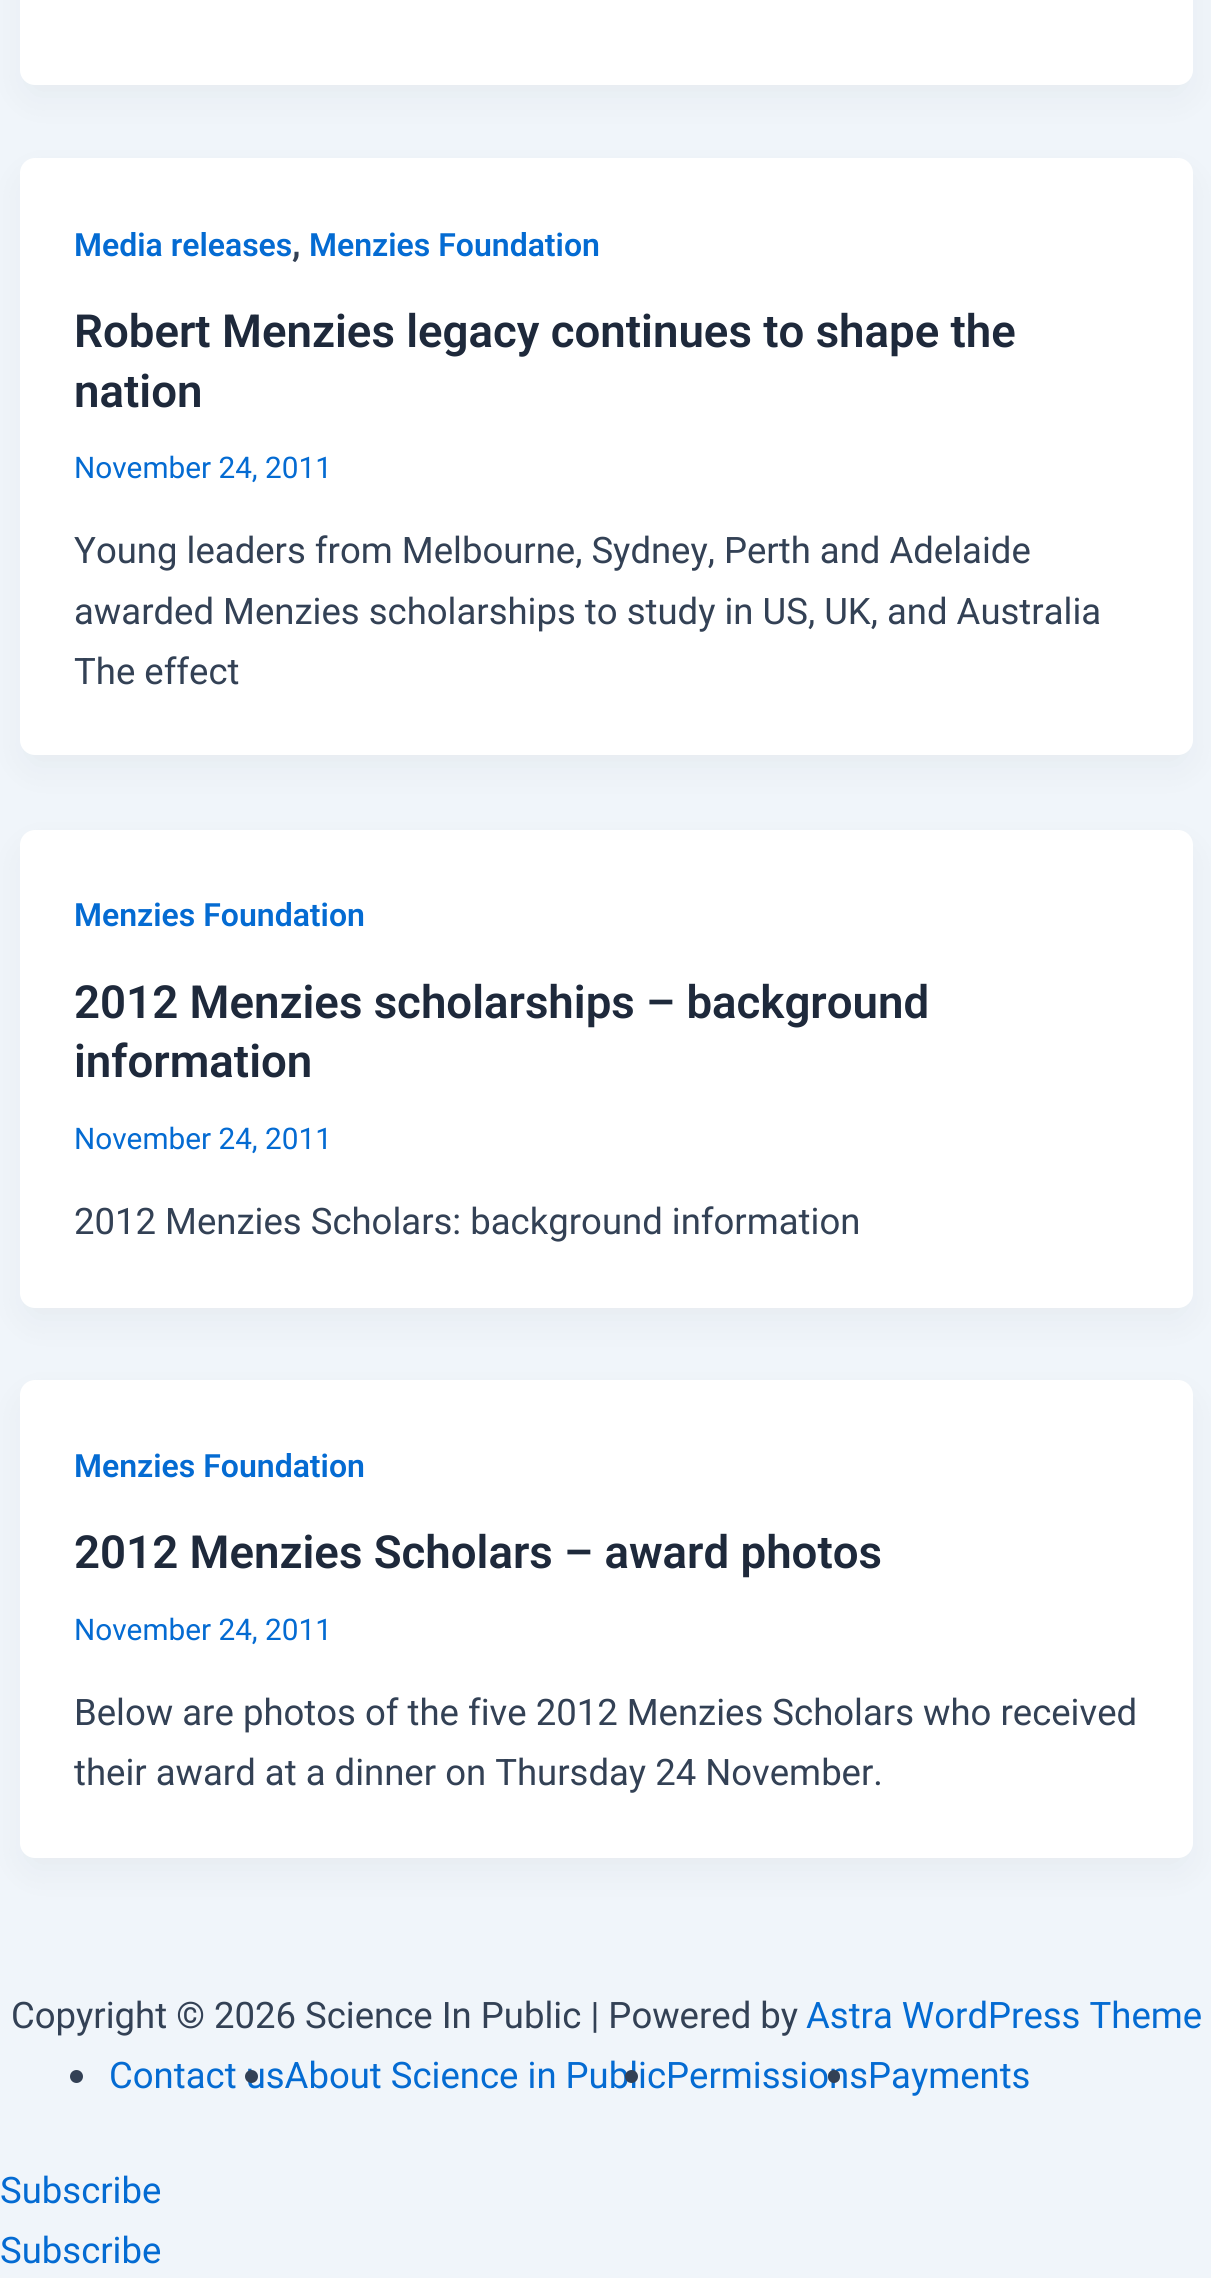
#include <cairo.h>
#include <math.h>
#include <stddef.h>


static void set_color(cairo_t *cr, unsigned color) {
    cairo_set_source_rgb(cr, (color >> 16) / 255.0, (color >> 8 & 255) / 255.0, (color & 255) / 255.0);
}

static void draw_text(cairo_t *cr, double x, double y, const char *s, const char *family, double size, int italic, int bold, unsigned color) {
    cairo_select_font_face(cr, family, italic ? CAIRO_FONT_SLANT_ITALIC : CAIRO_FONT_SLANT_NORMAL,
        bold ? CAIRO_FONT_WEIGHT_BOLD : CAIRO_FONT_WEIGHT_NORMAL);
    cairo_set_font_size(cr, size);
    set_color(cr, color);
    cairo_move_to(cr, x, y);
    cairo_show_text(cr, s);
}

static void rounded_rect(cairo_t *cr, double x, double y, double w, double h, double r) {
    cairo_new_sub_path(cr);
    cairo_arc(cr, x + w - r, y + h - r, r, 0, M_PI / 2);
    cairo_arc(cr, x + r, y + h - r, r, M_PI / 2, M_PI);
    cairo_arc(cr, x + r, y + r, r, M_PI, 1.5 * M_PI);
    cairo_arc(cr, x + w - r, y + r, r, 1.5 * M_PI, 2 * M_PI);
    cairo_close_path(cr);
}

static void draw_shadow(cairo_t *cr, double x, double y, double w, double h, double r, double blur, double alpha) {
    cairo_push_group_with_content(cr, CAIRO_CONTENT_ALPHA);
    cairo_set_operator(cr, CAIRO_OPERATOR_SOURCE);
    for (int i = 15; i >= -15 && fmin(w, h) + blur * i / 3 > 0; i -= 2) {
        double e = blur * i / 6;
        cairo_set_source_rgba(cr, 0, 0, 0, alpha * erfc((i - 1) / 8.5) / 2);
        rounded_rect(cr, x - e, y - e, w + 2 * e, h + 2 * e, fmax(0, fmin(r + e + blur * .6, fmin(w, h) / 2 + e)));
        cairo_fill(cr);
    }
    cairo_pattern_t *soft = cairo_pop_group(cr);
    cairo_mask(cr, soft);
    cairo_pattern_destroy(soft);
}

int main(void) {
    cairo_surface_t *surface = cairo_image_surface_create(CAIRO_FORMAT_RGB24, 1211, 2278);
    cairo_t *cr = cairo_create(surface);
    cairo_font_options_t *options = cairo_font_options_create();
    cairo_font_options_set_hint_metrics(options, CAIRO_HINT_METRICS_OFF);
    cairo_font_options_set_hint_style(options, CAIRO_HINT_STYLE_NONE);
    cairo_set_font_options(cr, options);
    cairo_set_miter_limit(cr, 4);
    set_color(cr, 0xF0F5FA);
    cairo_paint(cr);
    set_color(cr, 0x101828);
    draw_shadow(cr, 25, -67, 1163, 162, 10, 19, 0.05);
    set_color(cr, 0xFFFFFF);
    rounded_rect(cr, 20, -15, 1173, 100, 15);
    cairo_fill(cr);
    set_color(cr, 0x101828);
    draw_shadow(cr, 25, 178, 1163, 587, 10, 19, 0.05);
    set_color(cr, 0xFFFFFF);
    rounded_rect(cr, 20, 158, 1173, 597, 15);
    cairo_fill(cr);
    draw_text(cr, 74, 256, "Media releases", "Roboto SemiBold", 32, 0, 0, 0x046BD2);
    draw_text(cr, 292, 256, ",", "Roboto SemiBold", 36.5, 0, 0, 0x334155);
    draw_text(cr, 309, 256, "Menzies Foundation", "Roboto SemiBold", 32, 0, 0, 0x046BD2);
    draw_text(cr, 74, 347, "Robert Menzies legacy continues to shape the", "Roboto SemiBold", 45.6, 0, 0, 0x1E293B);
    draw_text(cr, 74, 407, "nation", "Roboto SemiBold", 45.6, 0, 0, 0x1E293B);
    draw_text(cr, 74, 478, "November 24, 2011", "Roboto", 29.75, 0, 0, 0x046BD2);
    draw_text(cr, 74, 563, "Young leaders from Melbourne, Sydney, Perth and Adelaide", "Roboto", 36.5, 0, 0, 0x334155);
    draw_text(cr, 74, 624, "awarded Menzies scholarships to study in US, UK, and Australia", "Roboto", 36.5, 0, 0, 0x334155);
    draw_text(cr, 74, 684, "The effect", "Roboto", 36.5, 0, 0, 0x334155);
    set_color(cr, 0x101828);
    draw_shadow(cr, 25, 850, 1163, 468, 10, 19, 0.05);
    set_color(cr, 0xFFFFFF);
    rounded_rect(cr, 20, 830, 1173, 478, 15);
    cairo_fill(cr);
    draw_text(cr, 74, 926, "Menzies Foundation", "Roboto SemiBold", 32, 0, 0, 0x046BD2);
    draw_text(cr, 74, 1018, "2012 Menzies scholarships – background", "Roboto SemiBold", 45.6, 0, 0, 0x1E293B);
    draw_text(cr, 74, 1077, "information", "Roboto SemiBold", 45.6, 0, 0, 0x1E293B);
    draw_text(cr, 74, 1149, "November 24, 2011", "Roboto", 29.75, 0, 0, 0x046BD2);
    draw_text(cr, 74, 1234, "2012 Menzies Scholars: background information", "Roboto", 36.5, 0, 0, 0x334155);
    set_color(cr, 0x101828);
    draw_shadow(cr, 25, 1400, 1163, 468, 10, 19, 0.05);
    set_color(cr, 0xFFFFFF);
    rounded_rect(cr, 20, 1380, 1173, 478, 15);
    cairo_fill(cr);
    draw_text(cr, 74, 1477, "Menzies Foundation", "Roboto SemiBold", 32, 0, 0, 0x046BD2);
    draw_text(cr, 74, 1568, "2012 Menzies Scholars – award photos", "Roboto SemiBold", 45.6, 0, 0, 0x1E293B);
    draw_text(cr, 74, 1640, "November 24, 2011", "Roboto", 29.75, 0, 0, 0x046BD2);
    draw_text(cr, 74, 1725, "Below are photos of the five 2012 Menzies Scholars who received", "Roboto", 36.5, 0, 0, 0x334155);
    draw_text(cr, 74, 1785, "their award at a dinner on Thursday 24 November.", "Roboto", 36.5, 0, 0, 0x334155);
    draw_text(cr, 11, 2028, "Copyright © 2026 Science In Public | Powered by", "Roboto", 36.5, 0, 0, 0x334155);
    draw_text(cr, 806, 2028, "Astra WordPress Theme", "Roboto", 36.5, 0, 0, 0x046BD2);
    set_color(cr, 0x334155);
    cairo_new_path(cr);
    cairo_arc(cr, 76.5, 2076.5, 6.5, 0, 2 * M_PI);
    cairo_fill(cr);
    draw_text(cr, 109, 2088, "Contact usAbout Science in Public", "Roboto", 36.5, 0, 0, 0x046BD2);
    set_color(cr, 0x334155);
    cairo_new_path(cr);
    cairo_arc(cr, 631.5, 2076.5, 6.5, 0, 2 * M_PI);
    cairo_fill(cr);
    draw_text(cr, 666, 2088, "PermissionsPayments", "Roboto", 36.5, 0, 0, 0x046BD2);
    set_color(cr, 0x334155);
    cairo_new_path(cr);
    cairo_arc(cr, 251.5, 2076.5, 6.5, 0, 2 * M_PI);
    cairo_fill(cr);
    rounded_rect(cr, 828, 2070, 12, 13, 6);
    cairo_fill(cr);
    draw_text(cr, 0, 2203, "Subscribe", "Roboto", 36.5, 0, 0, 0x046BD2);
    draw_text(cr, 0, 2263, "Subscribe", "Roboto", 36.5, 0, 0, 0x046BD2);
    cairo_surface_write_to_png(surface, "output.png");
    cairo_font_options_destroy(options);
    cairo_destroy(cr);
    cairo_surface_destroy(surface);
    return 0;
}
